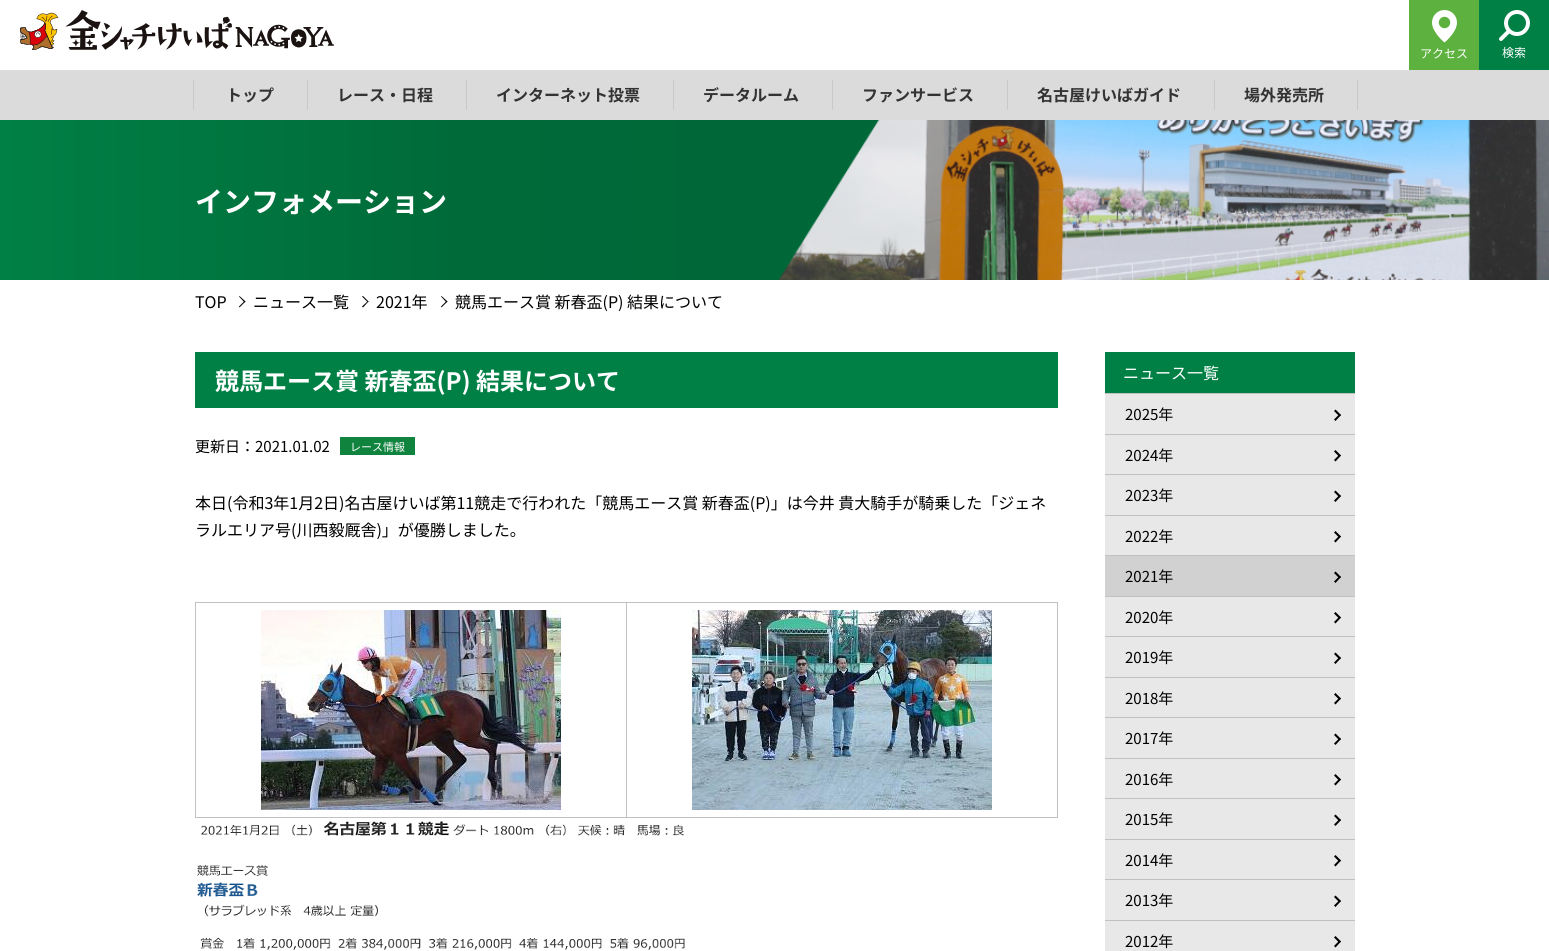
#include <cairo.h>
#include <math.h>
#include <stddef.h>


static void set_color(cairo_t *cr, unsigned color) {
    cairo_set_source_rgb(cr, (color >> 16) / 255.0, (color >> 8 & 255) / 255.0, (color & 255) / 255.0);
}

static void draw_text(cairo_t *cr, double x, double y, const char *s, const char *family, double size, int italic, int bold, unsigned color) {
    cairo_select_font_face(cr, family, italic ? CAIRO_FONT_SLANT_ITALIC : CAIRO_FONT_SLANT_NORMAL,
        bold ? CAIRO_FONT_WEIGHT_BOLD : CAIRO_FONT_WEIGHT_NORMAL);
    cairo_set_font_size(cr, size);
    set_color(cr, color);
    cairo_move_to(cr, x, y);
    cairo_show_text(cr, s);
}

static void fill_rect(cairo_t *cr, double x, double y, double w, double h, unsigned color) {
    set_color(cr, color);
    cairo_rectangle(cr, x, y, w, h);
    cairo_fill(cr);
}

static void draw_image(cairo_t *cr, const char *path, double x, double y, double w, double h) {
    cairo_surface_t *image = cairo_image_surface_create_from_png(path);
    cairo_save(cr);
    cairo_set_source_surface(cr, image, x, y);
    cairo_rectangle(cr, x, y, w, h);
    cairo_fill(cr);
    cairo_restore(cr);
    cairo_surface_destroy(image);
}

int main(void) {
    cairo_surface_t *surface = cairo_image_surface_create(CAIRO_FORMAT_RGB24, 1549, 951);
    cairo_t *cr = cairo_create(surface);
    cairo_font_options_t *options = cairo_font_options_create();
    cairo_font_options_set_hint_metrics(options, CAIRO_HINT_METRICS_OFF);
    cairo_font_options_set_hint_style(options, CAIRO_HINT_STYLE_NONE);
    cairo_set_font_options(cr, options);
    cairo_set_miter_limit(cr, 4);
    cairo_pattern_t *gradient;
    set_color(cr, 0xFFFFFF);
    cairo_paint(cr);
    draw_image(cr, "assets/img1.png", 20, 10, 314, 40);
    fill_rect(cr, 0, 70, 1549, 50, 0xDBDBDB);
    fill_rect(cr, 1409, 0, 70, 70, 0x5DB13E);
    draw_image(cr, "assets/img2.png", 1432, 10, 25, 33);
    draw_text(cr, 1420, 58, "アクセス", "Noto Sans JP", 12, 0, 0, 0xFFFFFF);
    fill_rect(cr, 1479, 0, 70, 70, 0x008045);
    cairo_new_path(cr);
    cairo_arc(cr, 1517, 23, 11, 0, 2 * M_PI);
    set_color(cr, 0xFFFFFF);
    cairo_set_line_width(cr, 4);
    cairo_stroke(cr);
    cairo_new_path(cr);
    cairo_move_to(cr, 1501, 39);
    cairo_line_to(cr, 1509, 31);
    cairo_set_line_cap(cr, CAIRO_LINE_CAP_ROUND);
    cairo_set_line_join(cr, CAIRO_LINE_JOIN_ROUND);
    cairo_stroke(cr);
    draw_text(cr, 1502, 57, "検索", "Noto Sans JP", 12, 0, 0, 0xFFFFFF);
    fill_rect(cr, 193, 80, 1, 30, 0xC9C9C9);
    draw_text(cr, 226, 101, "トップ", "Noto Sans JP", 16, 0, 1, 0x333333);
    fill_rect(cr, 307, 80, 1, 30, 0xC9C9C9);
    draw_text(cr, 337, 101, "レース・日程", "Noto Sans JP", 16, 0, 1, 0x333333);
    fill_rect(cr, 466, 80, 1, 30, 0xC9C9C9);
    draw_text(cr, 496, 101, "インターネット投票", "Noto Sans JP", 16, 0, 1, 0x333333);
    fill_rect(cr, 673, 80, 1, 30, 0xC9C9C9);
    draw_text(cr, 703, 101, "データルーム", "Noto Sans JP", 16, 0, 1, 0x333333);
    fill_rect(cr, 832, 80, 1, 30, 0xC9C9C9);
    draw_text(cr, 862, 101, "ファンサービス", "Noto Sans JP", 16, 0, 1, 0x333333);
    fill_rect(cr, 1007, 80, 1, 30, 0xC9C9C9);
    draw_text(cr, 1037, 101, "名古屋けいばガイド", "Noto Sans JP", 16, 0, 1, 0x333333);
    fill_rect(cr, 1214, 80, 1, 30, 0xC9C9C9);
    draw_text(cr, 1244, 101, "場外発売所", "Noto Sans JP", 16, 0, 1, 0x333333);
    fill_rect(cr, 1357, 80, 1, 30, 0xC9C9C9);
    gradient = cairo_pattern_create_linear(0, 200, 1549, 200);
    cairo_pattern_add_color_stop_rgba(gradient, 0, 0, 0.502, 0.271, 1);
    cairo_pattern_add_color_stop_rgba(gradient, 0.3, 0, 0.416, 0.224, 1);
    cairo_pattern_add_color_stop_rgba(gradient, 1, 0, 0.384, 0.208, 1);
    cairo_set_source(cr, gradient);
    cairo_pattern_destroy(gradient);
    cairo_rectangle(cr, 0, 120, 880, 160);
    cairo_fill(cr);
    draw_text(cr, 195, 212, "インフォメーション", "Noto Sans JP", 28, 0, 1, 0xFFFFFF);
    draw_image(cr, "assets/img3.png", 778, 120, 771, 160);
    draw_text(cr, 195, 308, "TOP", "Noto Sans JP", 16, 0, 0, 0x000000);
    cairo_new_path(cr);
    cairo_move_to(cr, 239.5, 296);
    cairo_line_to(cr, 245.5, 301.5);
    cairo_line_to(cr, 244.5, 302.5);
    cairo_line_to(cr, 239, 296.5);
    cairo_close_path(cr);
    cairo_fill(cr);
    cairo_new_path(cr);
    cairo_move_to(cr, 244.5, 301);
    cairo_line_to(cr, 245.5, 301.5);
    cairo_line_to(cr, 239.5, 307.5);
    cairo_line_to(cr, 239, 306.5);
    cairo_close_path(cr);
    cairo_fill(cr);
    draw_text(cr, 253, 308, "ニュース一覧", "Noto Sans JP", 16, 0, 0, 0x000000);
    cairo_new_path(cr);
    cairo_move_to(cr, 363, 296);
    cairo_line_to(cr, 368.5, 301.5);
    cairo_line_to(cr, 368, 302.5);
    cairo_line_to(cr, 362, 296.5);
    cairo_close_path(cr);
    cairo_fill(cr);
    cairo_new_path(cr);
    cairo_move_to(cr, 368, 301);
    cairo_line_to(cr, 368.5, 301.5);
    cairo_line_to(cr, 363, 307.5);
    cairo_line_to(cr, 362, 306.5);
    cairo_close_path(cr);
    cairo_fill(cr);
    draw_text(cr, 376, 308, "2021年", "Noto Sans JP", 16, 0, 0, 0x000000);
    cairo_new_path(cr);
    cairo_move_to(cr, 441.5, 296);
    cairo_line_to(cr, 447.5, 301.5);
    cairo_line_to(cr, 446.5, 302.5);
    cairo_line_to(cr, 441, 296.5);
    cairo_close_path(cr);
    cairo_fill(cr);
    cairo_new_path(cr);
    cairo_move_to(cr, 446.5, 301);
    cairo_line_to(cr, 447.5, 301.5);
    cairo_line_to(cr, 441.5, 307.5);
    cairo_line_to(cr, 441, 306.5);
    cairo_close_path(cr);
    cairo_fill(cr);
    draw_text(cr, 455, 308, "競馬エース賞 新春盃(P) 結果について", "Noto Sans JP", 16, 0, 0, 0x000000);
    fill_rect(cr, 195, 352, 863, 56, 0x008045);
    draw_text(cr, 215, 390, "競馬エース賞 新春盃(P) 結果について", "Noto Sans JP", 24, 0, 1, 0xFFFFFF);
    draw_text(cr, 195, 452, "更新日：2021.01.02", "Noto Sans JP", 15, 0, 0, 0x000000);
    fill_rect(cr, 340, 437, 75, 18, 0x10833E);
    draw_text(cr, 350, 451, "レース情報", "Noto Sans JP", 11, 0, 0, 0xFFFFFF);
    draw_text(cr, 195, 509, "本日(令和3年1月2日)名古屋けいば第11競走で行われた「競馬エース賞 新春盃(P)」は今井 貴大騎手が騎乗した「ジェネ", "Noto Sans JP", 16, 0, 0, 0x000000);
    draw_text(cr, 195, 536, "ラルエリア号(川西毅厩舎)」が優勝しました。", "Noto Sans JP", 16, 0, 0, 0x000000);
    fill_rect(cr, 626, 602, 432, 1, 0xC1C1C1);
    fill_rect(cr, 1057, 602, 1, 216, 0xC1C1C1);
    fill_rect(cr, 626, 817, 432, 1, 0xC1C1C1);
    fill_rect(cr, 626, 602, 1, 216, 0xC1C1C1);
    fill_rect(cr, 195, 602, 432, 1, 0xC1C1C1);
    fill_rect(cr, 195, 817, 432, 1, 0xC1C1C1);
    fill_rect(cr, 195, 602, 1, 216, 0xC1C1C1);
    draw_image(cr, "assets/img4.png", 261, 610, 300, 200);
    draw_image(cr, "assets/img5.png", 692, 610, 300, 200);
    draw_image(cr, "assets/img6.png", 197, 821, 488, 129);
    fill_rect(cr, 1105, 352, 250, 41, 0x008045);
    fill_rect(cr, 1105, 393, 250, 1, 0xC1C1C1);
    draw_text(cr, 1123, 379, "ニュース一覧", "Noto Sans JP", 16, 0, 0, 0xFFFFFF);
    fill_rect(cr, 1105, 394, 250, 40, 0xE8E8E8);
    fill_rect(cr, 1105, 434, 250, 1, 0xC1C1C1);
    draw_text(cr, 1125, 420, "2025年", "Noto Sans JP", 15, 0, 0, 0x000000);
    cairo_new_path(cr);
    cairo_move_to(cr, 1335.5, 409.5);
    cairo_line_to(cr, 1341, 415);
    cairo_line_to(cr, 1339.5, 416.5);
    cairo_line_to(cr, 1334, 411);
    cairo_close_path(cr);
    cairo_fill(cr);
    cairo_new_path(cr);
    cairo_move_to(cr, 1339.5, 414);
    cairo_line_to(cr, 1341, 415);
    cairo_line_to(cr, 1335.5, 421);
    cairo_line_to(cr, 1334, 419.5);
    cairo_close_path(cr);
    cairo_fill(cr);
    fill_rect(cr, 1105, 435, 250, 39, 0xE8E8E8);
    fill_rect(cr, 1105, 474, 250, 1, 0xC1C1C1);
    draw_text(cr, 1125, 461, "2024年", "Noto Sans JP", 15, 0, 0, 0x000000);
    cairo_new_path(cr);
    cairo_move_to(cr, 1335.5, 450);
    cairo_line_to(cr, 1341, 455.5);
    cairo_line_to(cr, 1339.5, 457);
    cairo_line_to(cr, 1334, 451.5);
    cairo_close_path(cr);
    cairo_fill(cr);
    cairo_new_path(cr);
    cairo_move_to(cr, 1339.5, 454.5);
    cairo_line_to(cr, 1341, 455.5);
    cairo_line_to(cr, 1335.5, 461.5);
    cairo_line_to(cr, 1334, 460);
    cairo_close_path(cr);
    cairo_fill(cr);
    fill_rect(cr, 1105, 475, 250, 40, 0xE8E8E8);
    fill_rect(cr, 1105, 515, 250, 1, 0xC1C1C1);
    draw_text(cr, 1125, 501, "2023年", "Noto Sans JP", 15, 0, 0, 0x000000);
    cairo_new_path(cr);
    cairo_move_to(cr, 1335.5, 490.5);
    cairo_line_to(cr, 1341, 496);
    cairo_line_to(cr, 1339.5, 497.5);
    cairo_line_to(cr, 1334, 492);
    cairo_close_path(cr);
    cairo_fill(cr);
    cairo_new_path(cr);
    cairo_move_to(cr, 1339.5, 495);
    cairo_line_to(cr, 1341, 496);
    cairo_line_to(cr, 1335.5, 502);
    cairo_line_to(cr, 1334, 500.5);
    cairo_close_path(cr);
    cairo_fill(cr);
    fill_rect(cr, 1105, 516, 250, 39, 0xE8E8E8);
    fill_rect(cr, 1105, 555, 250, 1, 0xC1C1C1);
    draw_text(cr, 1125, 542, "2022年", "Noto Sans JP", 15, 0, 0, 0x000000);
    cairo_new_path(cr);
    cairo_move_to(cr, 1335.5, 531);
    cairo_line_to(cr, 1341, 536.5);
    cairo_line_to(cr, 1339.5, 538);
    cairo_line_to(cr, 1334, 532.5);
    cairo_close_path(cr);
    cairo_fill(cr);
    cairo_new_path(cr);
    cairo_move_to(cr, 1339.5, 535.5);
    cairo_line_to(cr, 1341, 536.5);
    cairo_line_to(cr, 1335.5, 542.5);
    cairo_line_to(cr, 1334, 541);
    cairo_close_path(cr);
    cairo_fill(cr);
    fill_rect(cr, 1105, 556, 250, 40, 0xD1D1D1);
    fill_rect(cr, 1105, 596, 250, 1, 0xC1C1C1);
    draw_text(cr, 1125, 582, "2021年", "Noto Sans JP", 15, 0, 0, 0x000000);
    cairo_new_path(cr);
    cairo_move_to(cr, 1335.5, 571.5);
    cairo_line_to(cr, 1341, 577);
    cairo_line_to(cr, 1339.5, 578.5);
    cairo_line_to(cr, 1334, 573);
    cairo_close_path(cr);
    cairo_fill(cr);
    cairo_new_path(cr);
    cairo_move_to(cr, 1339.5, 576);
    cairo_line_to(cr, 1341, 577);
    cairo_line_to(cr, 1335.5, 583);
    cairo_line_to(cr, 1334, 581.5);
    cairo_close_path(cr);
    cairo_fill(cr);
    fill_rect(cr, 1105, 597, 250, 39, 0xE8E8E8);
    fill_rect(cr, 1105, 636, 250, 1, 0xC1C1C1);
    draw_text(cr, 1125, 623, "2020年", "Noto Sans JP", 15, 0, 0, 0x000000);
    cairo_new_path(cr);
    cairo_move_to(cr, 1335.5, 612);
    cairo_line_to(cr, 1341, 617.5);
    cairo_line_to(cr, 1339.5, 619);
    cairo_line_to(cr, 1334, 613.5);
    cairo_close_path(cr);
    cairo_fill(cr);
    cairo_new_path(cr);
    cairo_move_to(cr, 1339.5, 616.5);
    cairo_line_to(cr, 1341, 617.5);
    cairo_line_to(cr, 1335.5, 623.5);
    cairo_line_to(cr, 1334, 622);
    cairo_close_path(cr);
    cairo_fill(cr);
    fill_rect(cr, 1105, 637, 250, 40, 0xE8E8E8);
    fill_rect(cr, 1105, 677, 250, 1, 0xC1C1C1);
    draw_text(cr, 1125, 663, "2019年", "Noto Sans JP", 15, 0, 0, 0x000000);
    cairo_new_path(cr);
    cairo_move_to(cr, 1335.5, 652.5);
    cairo_line_to(cr, 1341, 658);
    cairo_line_to(cr, 1339.5, 659.5);
    cairo_line_to(cr, 1334, 654);
    cairo_close_path(cr);
    cairo_fill(cr);
    cairo_new_path(cr);
    cairo_move_to(cr, 1339.5, 657);
    cairo_line_to(cr, 1341, 658);
    cairo_line_to(cr, 1335.5, 664);
    cairo_line_to(cr, 1334, 662.5);
    cairo_close_path(cr);
    cairo_fill(cr);
    fill_rect(cr, 1105, 678, 250, 39, 0xE8E8E8);
    fill_rect(cr, 1105, 717, 250, 1, 0xC1C1C1);
    draw_text(cr, 1125, 704, "2018年", "Noto Sans JP", 15, 0, 0, 0x000000);
    cairo_new_path(cr);
    cairo_move_to(cr, 1335.5, 693);
    cairo_line_to(cr, 1341, 698.5);
    cairo_line_to(cr, 1339.5, 700);
    cairo_line_to(cr, 1334, 694.5);
    cairo_close_path(cr);
    cairo_fill(cr);
    cairo_new_path(cr);
    cairo_move_to(cr, 1339.5, 697.5);
    cairo_line_to(cr, 1341, 698.5);
    cairo_line_to(cr, 1335.5, 704.5);
    cairo_line_to(cr, 1334, 703);
    cairo_close_path(cr);
    cairo_fill(cr);
    fill_rect(cr, 1105, 718, 250, 40, 0xE8E8E8);
    fill_rect(cr, 1105, 758, 250, 1, 0xC1C1C1);
    draw_text(cr, 1125, 744, "2017年", "Noto Sans JP", 15, 0, 0, 0x000000);
    cairo_new_path(cr);
    cairo_move_to(cr, 1335.5, 733.5);
    cairo_line_to(cr, 1341, 739);
    cairo_line_to(cr, 1339.5, 740.5);
    cairo_line_to(cr, 1334, 735);
    cairo_close_path(cr);
    cairo_fill(cr);
    cairo_new_path(cr);
    cairo_move_to(cr, 1339.5, 738);
    cairo_line_to(cr, 1341, 739);
    cairo_line_to(cr, 1335.5, 745);
    cairo_line_to(cr, 1334, 743.5);
    cairo_close_path(cr);
    cairo_fill(cr);
    fill_rect(cr, 1105, 759, 250, 39, 0xE8E8E8);
    fill_rect(cr, 1105, 798, 250, 1, 0xC1C1C1);
    draw_text(cr, 1125, 785, "2016年", "Noto Sans JP", 15, 0, 0, 0x000000);
    cairo_new_path(cr);
    cairo_move_to(cr, 1335.5, 774);
    cairo_line_to(cr, 1341, 779.5);
    cairo_line_to(cr, 1339.5, 781);
    cairo_line_to(cr, 1334, 775.5);
    cairo_close_path(cr);
    cairo_fill(cr);
    cairo_new_path(cr);
    cairo_move_to(cr, 1339.5, 778.5);
    cairo_line_to(cr, 1341, 779.5);
    cairo_line_to(cr, 1335.5, 785.5);
    cairo_line_to(cr, 1334, 784);
    cairo_close_path(cr);
    cairo_fill(cr);
    fill_rect(cr, 1105, 799, 250, 40, 0xE8E8E8);
    fill_rect(cr, 1105, 839, 250, 1, 0xC1C1C1);
    draw_text(cr, 1125, 825, "2015年", "Noto Sans JP", 15, 0, 0, 0x000000);
    cairo_new_path(cr);
    cairo_move_to(cr, 1335.5, 814.5);
    cairo_line_to(cr, 1341, 820);
    cairo_line_to(cr, 1339.5, 821.5);
    cairo_line_to(cr, 1334, 816);
    cairo_close_path(cr);
    cairo_fill(cr);
    cairo_new_path(cr);
    cairo_move_to(cr, 1339.5, 819);
    cairo_line_to(cr, 1341, 820);
    cairo_line_to(cr, 1335.5, 826);
    cairo_line_to(cr, 1334, 824.5);
    cairo_close_path(cr);
    cairo_fill(cr);
    fill_rect(cr, 1105, 840, 250, 39, 0xE8E8E8);
    fill_rect(cr, 1105, 879, 250, 1, 0xC1C1C1);
    draw_text(cr, 1125, 866, "2014年", "Noto Sans JP", 15, 0, 0, 0x000000);
    cairo_new_path(cr);
    cairo_move_to(cr, 1335.5, 855);
    cairo_line_to(cr, 1341, 860.5);
    cairo_line_to(cr, 1339.5, 862);
    cairo_line_to(cr, 1334, 856.5);
    cairo_close_path(cr);
    cairo_fill(cr);
    cairo_new_path(cr);
    cairo_move_to(cr, 1339.5, 859.5);
    cairo_line_to(cr, 1341, 860.5);
    cairo_line_to(cr, 1335.5, 866.5);
    cairo_line_to(cr, 1334, 865);
    cairo_close_path(cr);
    cairo_fill(cr);
    fill_rect(cr, 1105, 880, 250, 40, 0xE8E8E8);
    fill_rect(cr, 1105, 920, 250, 1, 0xC1C1C1);
    draw_text(cr, 1125, 906, "2013年", "Noto Sans JP", 15, 0, 0, 0x000000);
    cairo_new_path(cr);
    cairo_move_to(cr, 1335.5, 895.5);
    cairo_line_to(cr, 1341, 901);
    cairo_line_to(cr, 1339.5, 902.5);
    cairo_line_to(cr, 1334, 897);
    cairo_close_path(cr);
    cairo_fill(cr);
    cairo_new_path(cr);
    cairo_move_to(cr, 1339.5, 900);
    cairo_line_to(cr, 1341, 901);
    cairo_line_to(cr, 1335.5, 907);
    cairo_line_to(cr, 1334, 905.5);
    cairo_close_path(cr);
    cairo_fill(cr);
    fill_rect(cr, 1105, 921, 250, 30, 0xE8E8E8);
    draw_text(cr, 1125, 947, "2012年", "Noto Sans JP", 15, 0, 0, 0x000000);
    cairo_new_path(cr);
    cairo_move_to(cr, 1335.5, 936);
    cairo_line_to(cr, 1341, 941.5);
    cairo_line_to(cr, 1339.5, 943);
    cairo_line_to(cr, 1334, 937.5);
    cairo_close_path(cr);
    cairo_fill(cr);
    cairo_new_path(cr);
    cairo_move_to(cr, 1339.5, 940.5);
    cairo_line_to(cr, 1341, 941.5);
    cairo_line_to(cr, 1335.5, 947.5);
    cairo_line_to(cr, 1334, 946);
    cairo_close_path(cr);
    cairo_fill(cr);
    cairo_surface_write_to_png(surface, "output.png");
    cairo_font_options_destroy(options);
    cairo_destroy(cr);
    cairo_surface_destroy(surface);
    return 0;
}
